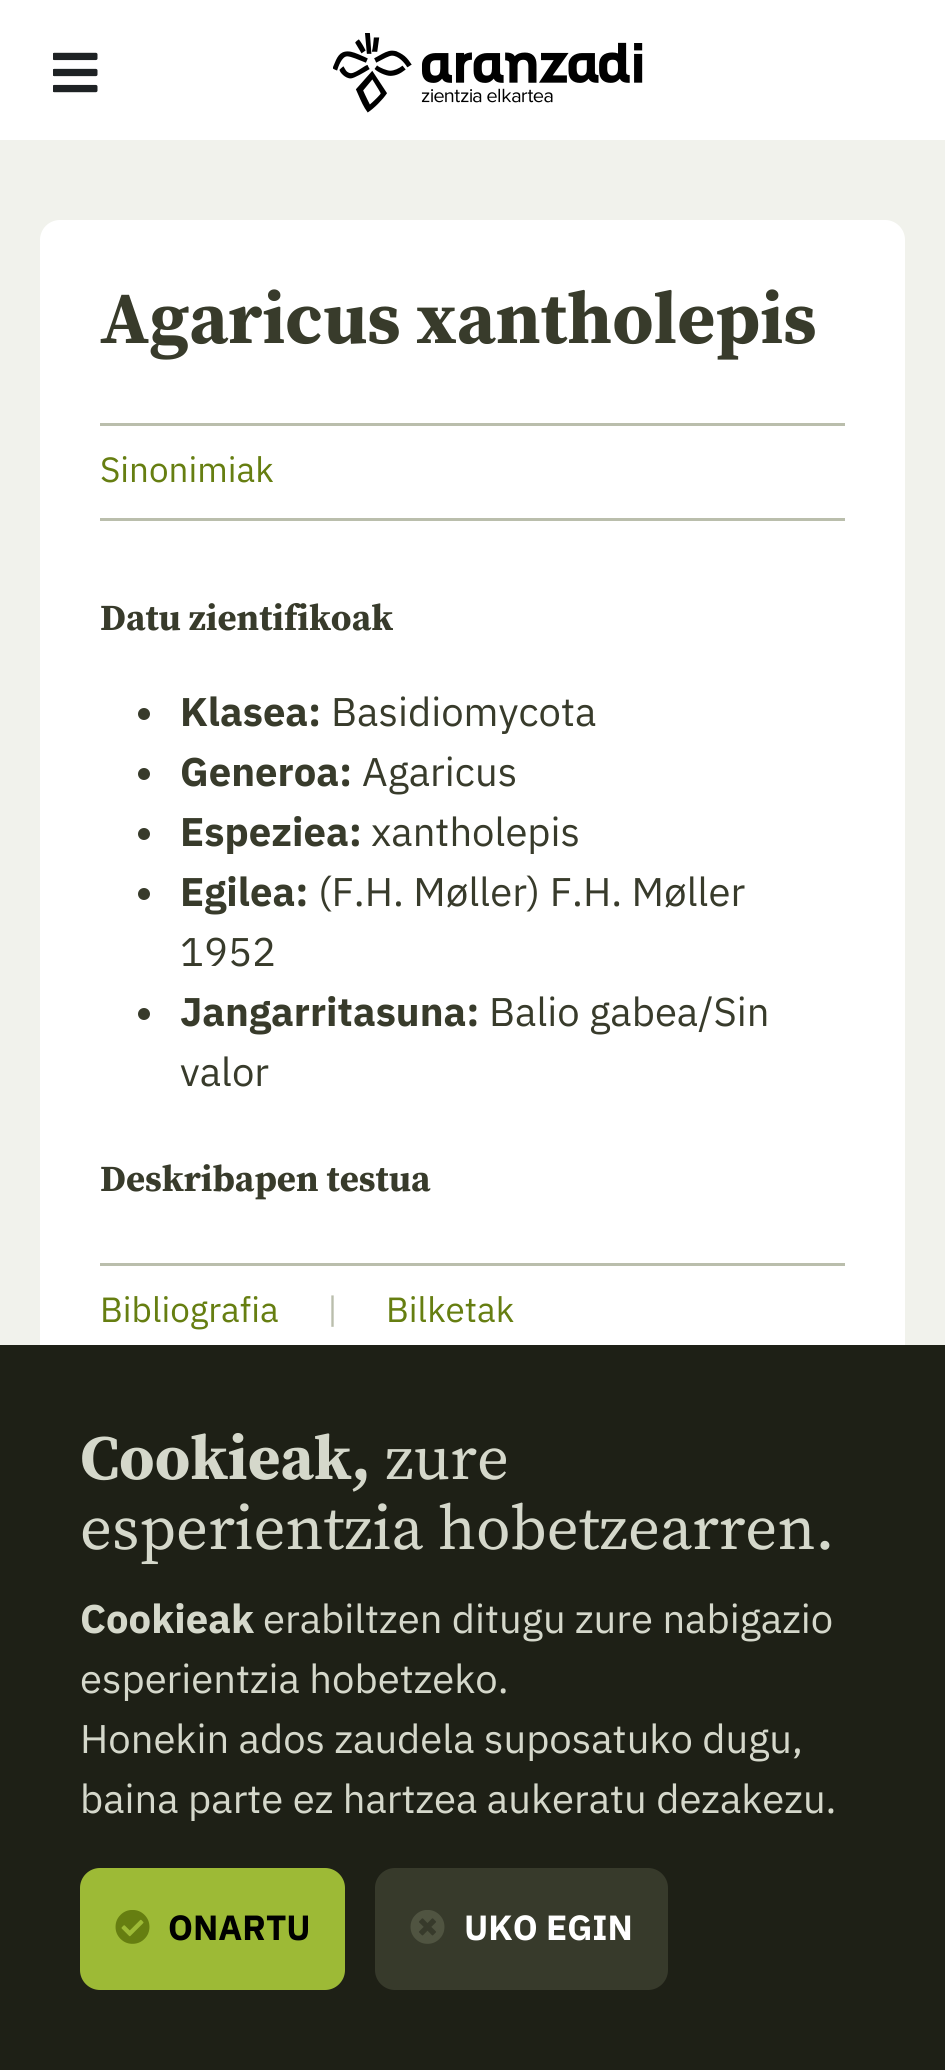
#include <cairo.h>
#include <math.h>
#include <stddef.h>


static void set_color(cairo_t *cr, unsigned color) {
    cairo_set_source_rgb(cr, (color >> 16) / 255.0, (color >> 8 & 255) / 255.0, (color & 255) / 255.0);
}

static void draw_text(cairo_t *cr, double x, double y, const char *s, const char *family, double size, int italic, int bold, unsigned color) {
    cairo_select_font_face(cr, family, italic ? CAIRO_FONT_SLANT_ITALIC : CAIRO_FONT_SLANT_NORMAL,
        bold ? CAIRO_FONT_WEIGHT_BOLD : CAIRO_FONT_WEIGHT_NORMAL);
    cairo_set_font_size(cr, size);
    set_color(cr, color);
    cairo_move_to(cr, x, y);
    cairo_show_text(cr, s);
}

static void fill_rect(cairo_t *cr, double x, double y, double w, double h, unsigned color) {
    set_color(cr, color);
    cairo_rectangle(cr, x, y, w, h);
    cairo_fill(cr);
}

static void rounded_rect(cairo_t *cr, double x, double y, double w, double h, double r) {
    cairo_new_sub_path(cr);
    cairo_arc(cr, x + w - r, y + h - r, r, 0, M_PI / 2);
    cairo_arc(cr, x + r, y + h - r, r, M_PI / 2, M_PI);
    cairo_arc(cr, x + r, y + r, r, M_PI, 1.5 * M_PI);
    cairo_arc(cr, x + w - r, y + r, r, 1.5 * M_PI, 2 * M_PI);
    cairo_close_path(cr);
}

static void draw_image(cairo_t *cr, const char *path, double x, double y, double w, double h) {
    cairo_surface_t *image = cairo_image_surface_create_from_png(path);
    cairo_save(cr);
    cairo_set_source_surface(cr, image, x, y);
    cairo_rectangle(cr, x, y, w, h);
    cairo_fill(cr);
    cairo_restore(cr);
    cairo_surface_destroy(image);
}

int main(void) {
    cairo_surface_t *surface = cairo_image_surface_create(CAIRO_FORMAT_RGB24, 945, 2070);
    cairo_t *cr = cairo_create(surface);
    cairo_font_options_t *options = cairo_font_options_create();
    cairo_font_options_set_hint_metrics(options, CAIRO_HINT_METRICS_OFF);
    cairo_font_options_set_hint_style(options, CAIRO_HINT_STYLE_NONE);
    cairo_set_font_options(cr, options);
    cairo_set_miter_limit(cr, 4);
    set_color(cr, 0xF1F2EC);
    cairo_paint(cr);
    fill_rect(cr, 0, 0, 945, 140, 0xFFFFFF);
    draw_image(cr, "assets/img1.png", 53, 52, 45, 41);
    draw_image(cr, "assets/img2.png", 333, 33, 310, 80);
    rounded_rect(cr, 40, 220, 865, 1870, 20);
    cairo_fill(cr);
    draw_text(cr, 100, 343, "Agaricus xantholepis", "Source Serif Pro", 73.25, 0, 1, 0x383B2B);
    fill_rect(cr, 100, 423, 745, 3, 0xBABEAC);
    fill_rect(cr, 100, 518, 745, 3, 0xBABEAC);
    draw_text(cr, 100, 482, "Sinonimiak", "IBM Plex Sans", 35, 0, 0, 0x667E11);
    draw_text(cr, 100, 630, "Datu zientifikoak", "Source Serif Pro", 36.75, 0, 1, 0x383B2B);
    cairo_new_path(cr);
    cairo_arc(cr, 144, 714, 6, 0, 2 * M_PI);
    cairo_fill(cr);
    draw_text(cr, 180, 726, "Klasea:", "IBM Plex Sans", 40, 0, 1, 0x383B2B);
    draw_text(cr, 331, 726, "Basidiomycota", "IBM Plex Sans", 40, 0, 0, 0x383B2B);
    cairo_new_path(cr);
    cairo_arc(cr, 144, 774, 6, 0, 2 * M_PI);
    cairo_fill(cr);
    draw_text(cr, 180, 786, "Generoa:", "IBM Plex Sans", 40, 0, 1, 0x383B2B);
    draw_text(cr, 362, 786, "Agaricus", "IBM Plex Sans", 40, 0, 0, 0x383B2B);
    cairo_new_path(cr);
    cairo_arc(cr, 144, 834, 6, 0, 2 * M_PI);
    cairo_fill(cr);
    draw_text(cr, 180, 846, "Espeziea:", "IBM Plex Sans", 40, 0, 1, 0x383B2B);
    draw_text(cr, 371, 846, "xantholepis", "IBM Plex Sans", 40, 0, 0, 0x383B2B);
    cairo_new_path(cr);
    cairo_arc(cr, 144, 894, 6, 0, 2 * M_PI);
    cairo_fill(cr);
    draw_text(cr, 180, 906, "Egilea:", "IBM Plex Sans", 40, 0, 1, 0x383B2B);
    draw_text(cr, 318, 906, "(F.H. Møller) F.H. Møller", "IBM Plex Sans", 40, 0, 0, 0x383B2B);
    draw_text(cr, 180, 966, "1952", "IBM Plex Sans", 40, 0, 0, 0x383B2B);
    cairo_new_path(cr);
    cairo_arc(cr, 144, 1014, 6, 0, 2 * M_PI);
    cairo_fill(cr);
    draw_text(cr, 180, 1026, "Jangarritasuna:", "IBM Plex Sans", 40, 0, 1, 0x383B2B);
    draw_text(cr, 489, 1026, "Balio gabea/Sin", "IBM Plex Sans", 40, 0, 0, 0x383B2B);
    draw_text(cr, 180, 1086, "valor", "IBM Plex Sans", 40, 0, 0, 0x383B2B);
    draw_text(cr, 100, 1191, "Deskribapen testua", "Source Serif Pro", 36.75, 0, 1, 0x383B2B);
    fill_rect(cr, 100, 1263, 745, 3, 0xBABEAC);
    draw_text(cr, 100, 1322, "Bibliografia", "IBM Plex Sans", 35, 0, 0, 0x667E11);
    draw_text(cr, 327, 1322, "|", "IBM Plex Sans", 35, 0, 0, 0xBABEAC);
    draw_text(cr, 386, 1322, "Bilketak", "IBM Plex Sans", 35, 0, 0, 0x667E11);
    fill_rect(cr, 0, 1345, 945, 725, 0x1E2016);
    draw_text(cr, 80, 1479, "Cookieak,", "Source Serif Pro", 62.9, 0, 1, 0xD5D8CB);
    draw_text(cr, 385, 1479, "zure", "Source Serif Pro", 62.9, 0, 0, 0xD5D8CB);
    draw_text(cr, 80, 1549, "esperientzia hobetzearren.", "Source Serif Pro", 62.9, 0, 0, 0xD5D8CB);
    draw_text(cr, 80, 1633, "Cookieak", "IBM Plex Sans", 40, 0, 1, 0xD5D8CB);
    draw_text(cr, 263, 1633, "erabiltzen ditugu zure nabigazio", "IBM Plex Sans", 40, 0, 0, 0xD5D8CB);
    draw_text(cr, 80, 1693, "esperientzia hobetzeko.", "IBM Plex Sans", 40, 0, 0, 0xD5D8CB);
    draw_text(cr, 80, 1753, "Honekin ados zaudela suposatuko dugu,", "IBM Plex Sans", 40, 0, 0, 0xD5D8CB);
    draw_text(cr, 80, 1813, "baina parte ez hartzea aukeratu dezakezu.", "IBM Plex Sans", 40, 0, 0, 0xD5D8CB);
    set_color(cr, 0x9DBA36);
    rounded_rect(cr, 82.5, 1870.5, 260, 117, 17.5);
    cairo_fill_preserve(cr);
    cairo_set_line_width(cr, 5);
    cairo_stroke(cr);
    draw_image(cr, "assets/img3.png", 115, 1910, 35, 34);
    draw_text(cr, 168, 1940, "ONARTU", "IBM Plex Sans", 35, 0, 1, 0x000000);
    set_color(cr, 0x373A2B);
    rounded_rect(cr, 377.5, 1870.5, 288, 117, 17.5);
    cairo_fill_preserve(cr);
    cairo_stroke(cr);
    draw_image(cr, "assets/img4.png", 410, 1910, 35, 34);
    draw_text(cr, 464, 1940, "UKO EGIN", "IBM Plex Sans", 35, 0, 1, 0xFFFFFF);
    cairo_surface_write_to_png(surface, "output.png");
    cairo_font_options_destroy(options);
    cairo_destroy(cr);
    cairo_surface_destroy(surface);
    return 0;
}
